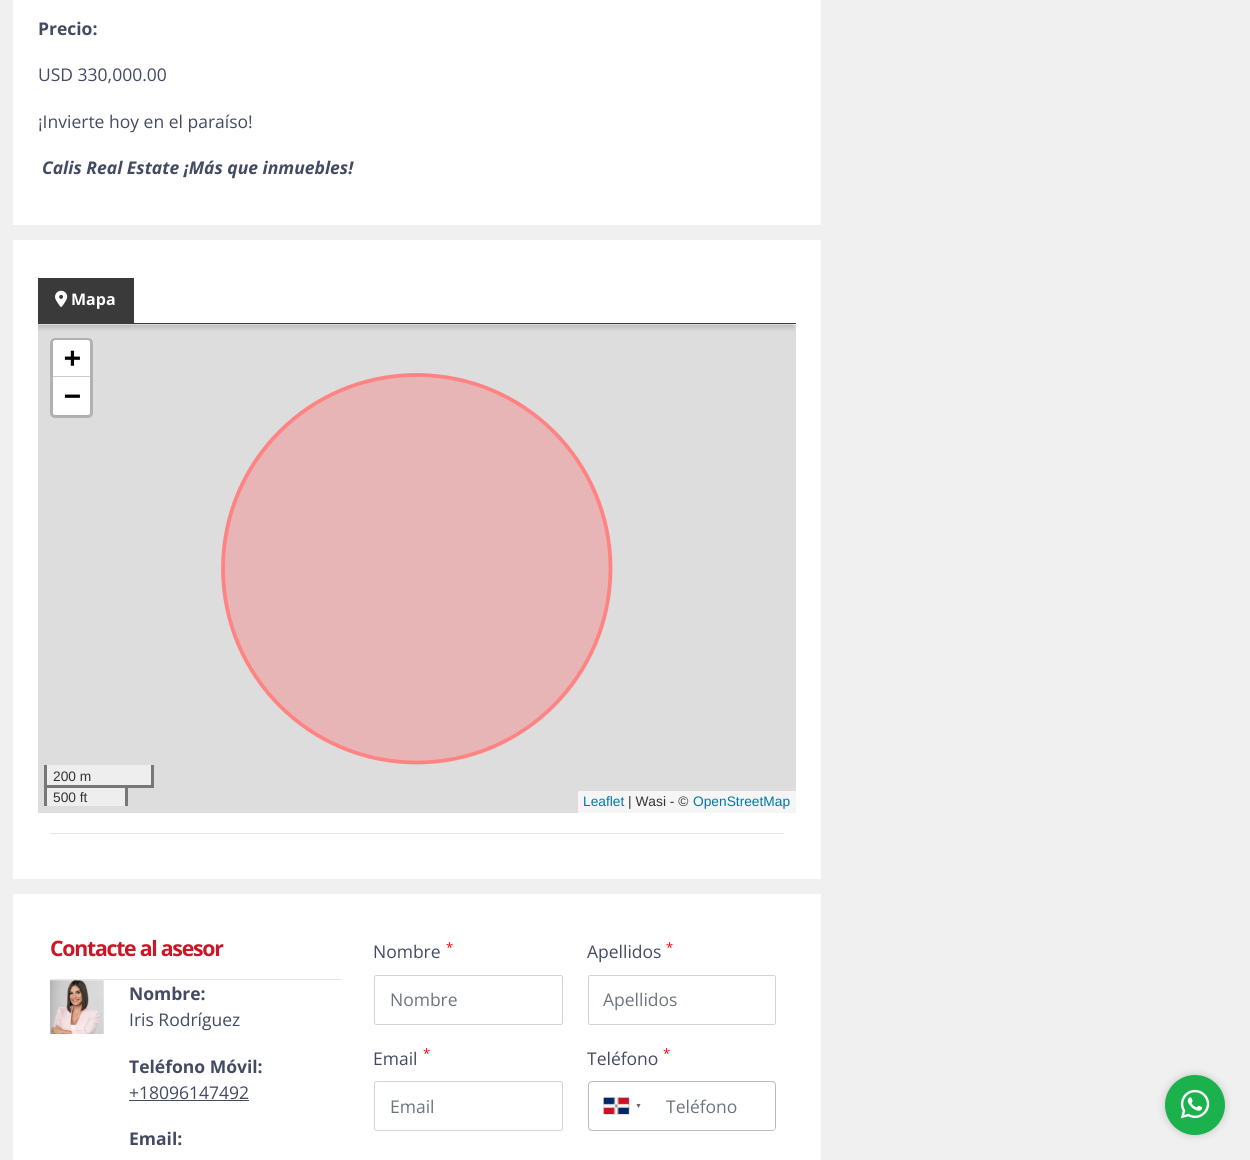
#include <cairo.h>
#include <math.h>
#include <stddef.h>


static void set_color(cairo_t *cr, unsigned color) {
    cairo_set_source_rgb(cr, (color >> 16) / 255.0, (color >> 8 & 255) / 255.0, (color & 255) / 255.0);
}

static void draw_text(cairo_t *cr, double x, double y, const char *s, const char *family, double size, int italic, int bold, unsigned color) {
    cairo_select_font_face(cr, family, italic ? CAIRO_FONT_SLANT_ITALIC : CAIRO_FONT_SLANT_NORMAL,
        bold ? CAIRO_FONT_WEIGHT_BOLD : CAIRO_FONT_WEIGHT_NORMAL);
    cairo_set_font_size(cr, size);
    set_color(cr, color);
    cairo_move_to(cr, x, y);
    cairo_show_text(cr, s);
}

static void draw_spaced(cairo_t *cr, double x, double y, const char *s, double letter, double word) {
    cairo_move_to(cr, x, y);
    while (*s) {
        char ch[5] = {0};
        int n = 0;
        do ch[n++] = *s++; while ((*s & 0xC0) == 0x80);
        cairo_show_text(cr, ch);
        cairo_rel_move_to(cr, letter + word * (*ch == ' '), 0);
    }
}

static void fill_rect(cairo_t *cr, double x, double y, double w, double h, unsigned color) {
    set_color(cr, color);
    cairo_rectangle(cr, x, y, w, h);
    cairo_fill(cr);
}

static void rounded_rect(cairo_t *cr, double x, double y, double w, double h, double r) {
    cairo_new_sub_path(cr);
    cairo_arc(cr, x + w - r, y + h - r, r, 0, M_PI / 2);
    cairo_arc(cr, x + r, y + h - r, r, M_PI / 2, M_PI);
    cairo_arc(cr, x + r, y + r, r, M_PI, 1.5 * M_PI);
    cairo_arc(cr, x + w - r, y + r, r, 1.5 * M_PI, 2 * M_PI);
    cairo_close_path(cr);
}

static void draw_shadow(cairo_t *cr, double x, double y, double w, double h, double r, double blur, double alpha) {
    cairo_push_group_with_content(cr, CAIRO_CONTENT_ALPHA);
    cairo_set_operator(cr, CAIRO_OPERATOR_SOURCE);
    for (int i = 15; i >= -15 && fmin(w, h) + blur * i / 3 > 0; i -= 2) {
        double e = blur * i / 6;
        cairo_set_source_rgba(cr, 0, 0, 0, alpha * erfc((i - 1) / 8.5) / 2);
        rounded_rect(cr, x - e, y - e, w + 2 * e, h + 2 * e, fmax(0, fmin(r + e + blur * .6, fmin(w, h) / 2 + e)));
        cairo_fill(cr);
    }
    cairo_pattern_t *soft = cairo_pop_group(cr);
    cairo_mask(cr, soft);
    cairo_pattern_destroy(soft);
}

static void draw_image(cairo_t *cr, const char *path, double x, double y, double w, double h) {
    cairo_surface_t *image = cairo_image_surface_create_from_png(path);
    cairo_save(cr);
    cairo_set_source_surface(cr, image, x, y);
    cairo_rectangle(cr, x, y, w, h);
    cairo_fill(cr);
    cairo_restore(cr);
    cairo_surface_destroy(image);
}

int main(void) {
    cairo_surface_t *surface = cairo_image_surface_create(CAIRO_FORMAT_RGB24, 1250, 1160);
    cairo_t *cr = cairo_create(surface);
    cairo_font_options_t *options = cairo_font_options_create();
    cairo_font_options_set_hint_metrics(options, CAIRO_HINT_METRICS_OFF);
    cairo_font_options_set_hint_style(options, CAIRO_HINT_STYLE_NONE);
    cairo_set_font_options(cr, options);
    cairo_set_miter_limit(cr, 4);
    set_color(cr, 0xF0F0F0);
    cairo_paint(cr);
    fill_rect(cr, 13, 0, 808, 225, 0xFFFFFF);
    draw_text(cr, 38, 35, "Precio:", "Open Sans", 17.5, 0, 1, 0x434A62);
    draw_text(cr, 38, 81, "USD 330,000.00", "Open Sans", 17.5, 0, 0, 0x434A62);
    draw_text(cr, 38, 128, "¡Invierte hoy en el paraíso!", "Open Sans", 17.5, 0, 0, 0x434A62);
    draw_text(cr, 42, 174, "Calis Real Estate ¡Más que inmuebles!", "Open Sans", 17.5, 1, 1, 0x434A62);
    fill_rect(cr, 13, 240, 808, 639, 0xFFFFFF);
    fill_rect(cr, 38, 325, 758, 488, 0xDDDDDD);
    cairo_save(cr);
    cairo_rectangle(cr, 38, 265, 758, 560);
    cairo_clip(cr);
    set_color(cr, 0x000000);
    draw_shadow(cr, 35, 281, 759, 47, 0, 2.5, 0.16);
    cairo_restore(cr);
    fill_rect(cr, 134, 278, 662, 45, 0xFFFFFF);
    fill_rect(cr, 38, 323, 758, 1, 0x3A3A3A);
    fill_rect(cr, 38, 278, 96, 45, 0x3A3A3A);
    draw_image(cr, "assets/img1.png", 55, 290, 13, 17);
    draw_text(cr, 71, 305, "Mapa", "Open Sans", 16, 0, 1, 0xFFFFFF);
    fill_rect(cr, 47, 788, 78, 18, 0xEEEEEE);
    rounded_rect(cr, 51.5, 339.5, 40, 77, 3.5);
    set_color(cr, 0xB1B1B1);
    cairo_set_line_width(cr, 3);
    cairo_stroke(cr);
    set_color(cr, 0xFFFFFF);
    cairo_new_path(cr);
    cairo_move_to(cr, 55.5, 340);
    cairo_line_to(cr, 87.5, 340);
    cairo_curve_to(cr, 89, 340, 90, 341, 90, 342.5);
    cairo_line_to(cr, 90, 378);
    cairo_line_to(cr, 53, 378);
    cairo_line_to(cr, 53, 342.5);
    cairo_curve_to(cr, 53, 341, 54, 340, 55.5, 340);
    cairo_close_path(cr);
    cairo_fill(cr);
    fill_rect(cr, 53, 376, 37, 1, 0xCCCCCC);
    draw_text(cr, 64, 367, "+", "DejaVu Sans Mono", 28, 0, 1, 0x000000);
    set_color(cr, 0xFFFFFF);
    cairo_new_path(cr);
    cairo_move_to(cr, 53, 378);
    cairo_line_to(cr, 90, 378);
    cairo_line_to(cr, 90, 412.5);
    cairo_curve_to(cr, 90, 414, 89, 415, 87.5, 415);
    cairo_line_to(cr, 55.5, 415);
    cairo_curve_to(cr, 54, 415, 53, 414, 53, 412.5);
    cairo_close_path(cr);
    cairo_fill(cr);
    draw_text(cr, 64, 405, "−", "DejaVu Sans Mono", 28, 0, 1, 0x000000);
    fill_rect(cr, 47, 765, 104, 20, 0xEEEEEE);
    fill_rect(cr, 151, 765, 3, 23, 0x777777);
    fill_rect(cr, 128, 785, 26, 3, 0x777777);
    fill_rect(cr, 44, 765, 3, 23, 0x777777);
    draw_text(cr, 53, 781, "200 m", "Liberation Sans", 13.75, 0, 0, 0x333333);
    fill_rect(cr, 44, 785, 84, 3, 0x777777);
    fill_rect(cr, 125, 785, 3, 21, 0x777777);
    fill_rect(cr, 44, 785, 3, 21, 0x777777);
    draw_text(cr, 53, 802, "500 ft", "Liberation Sans", 13.75, 0, 0, 0x333333);
    fill_rect(cr, 578, 791, 218, 22, 0xF5F5F5);
    draw_text(cr, 583, 806, "Leaflet", "Liberation Sans", 13.75, 0, 0, 0x0078A8);
    draw_text(cr, 628, 806, "| Wasi - ©", "Liberation Sans", 13.75, 0, 0, 0x333333);
    draw_text(cr, 693, 806, "OpenStreetMap", "Liberation Sans", 13.75, 0, 0, 0x0078A8);
    set_color(cr, 0xE7B5B5);
    cairo_set_fill_rule(cr, CAIRO_FILL_RULE_EVEN_ODD);
    cairo_new_path(cr);
    cairo_move_to(cr, 223, 569);
    cairo_curve_to(cr, 223, 676, 310, 762, 417, 762);
    cairo_curve_to(cr, 524, 762, 610, 676, 610, 569);
    cairo_curve_to(cr, 610, 462, 524, 375, 417, 375);
    cairo_curve_to(cr, 310, 375, 223, 462, 223, 569);
    cairo_fill(cr);
    cairo_new_path(cr);
    cairo_move_to(cr, 223, 568.5);
    cairo_curve_to(cr, 223, 675.5, 309.5, 762.5, 416.5, 762.5);
    cairo_curve_to(cr, 523.5, 762.5, 610.5, 675.5, 610.5, 568.5);
    cairo_curve_to(cr, 610.5, 461.5, 523.5, 375, 416.5, 375);
    cairo_curve_to(cr, 309.5, 375, 223, 461.5, 223, 568.5);
    set_color(cr, 0xFF8383);
    cairo_set_line_width(cr, 3.8);
    cairo_set_line_cap(cr, CAIRO_LINE_CAP_ROUND);
    cairo_set_line_join(cr, CAIRO_LINE_JOIN_ROUND);
    cairo_stroke(cr);
    fill_rect(cr, 50, 833, 734, 1, 0xE6E6E6);
    fill_rect(cr, 13, 894, 808, 266, 0xFFFFFF);
    fill_rect(cr, 50, 979, 291, 1, 0xE5E5E5);
    cairo_select_font_face(cr, "Open Sans", CAIRO_FONT_SLANT_NORMAL, CAIRO_FONT_WEIGHT_BOLD);
    cairo_set_font_size(cr, 21.25);
    set_color(cr, 0xCB1725);
    draw_spaced(cr, 50, 956, "Contacte al asesor", -1.25, 0);
    draw_image(cr, "assets/img2.png", 50, 980, 54, 54);
    draw_text(cr, 129, 1000, "Nombre:", "Open Sans", 17.5, 0, 1, 0x434A62);
    draw_text(cr, 129, 1026, "Iris Rodríguez", "Open Sans", 17.5, 0, 0, 0x434A62);
    draw_text(cr, 129, 1073, "Teléfono Móvil:", "Open Sans", 17.5, 0, 1, 0x434A62);
    draw_text(cr, 129, 1099, "+18096147492", "Open Sans", 17.5, 0, 0, 0x434A62);
    fill_rect(cr, 129, 1100, 120, 1, 0x434A62);
    draw_text(cr, 129, 1145, "Email:", "Open Sans", 17.5, 0, 1, 0x434A62);
    draw_text(cr, 373, 958, "Nombre", "Open Sans", 17.5, 0, 0, 0x434A62);
    draw_text(cr, 446, 952, "*", "Open Sans", 13, 0, 0, 0xFF0000);
    rounded_rect(cr, 374.5, 975.5, 188, 49, 2);
    set_color(cr, 0xCED4DA);
    cairo_set_line_width(cr, 1);
    cairo_set_line_cap(cr, CAIRO_LINE_CAP_BUTT);
    cairo_set_line_join(cr, CAIRO_LINE_JOIN_MITER);
    cairo_stroke(cr);
    draw_text(cr, 390, 1006, "Nombre", "Open Sans", 17.5, 0, 0, 0x6C757D);
    draw_text(cr, 587, 958, "Apellidos", "Open Sans", 17.5, 0, 0, 0x434A62);
    draw_text(cr, 666, 952, "*", "Open Sans", 13, 0, 0, 0xFF0000);
    rounded_rect(cr, 588.5, 975.5, 187, 49, 2);
    set_color(cr, 0xCED4DA);
    cairo_stroke(cr);
    draw_text(cr, 603, 1006, "Apellidos", "Open Sans", 17.5, 0, 0, 0x6C757D);
    draw_text(cr, 373, 1065, "Email", "Open Sans", 17.5, 0, 0, 0x434A62);
    draw_text(cr, 423, 1058, "*", "Open Sans", 13, 0, 0, 0xFF0000);
    rounded_rect(cr, 374.5, 1081.5, 188, 49, 2);
    set_color(cr, 0xCED4DA);
    cairo_stroke(cr);
    draw_text(cr, 390, 1113, "Email", "Open Sans", 17.5, 0, 0, 0x6C757D);
    draw_text(cr, 587, 1065, "Teléfono", "Open Sans", 17.5, 0, 0, 0x434A62);
    draw_text(cr, 663, 1058, "*", "Open Sans", 13, 0, 0, 0xFF0000);
    rounded_rect(cr, 588.5, 1081.5, 187, 49, 3.5);
    set_color(cr, 0xBBBBBB);
    cairo_stroke(cr);
    set_color(cr, 0x888888);
    draw_shadow(cr, 604, 1098, 25, 16, 0, 0.5, 1);
    draw_image(cr, "assets/img3.png", 603, 1097, 26, 17);
    cairo_select_font_face(cr, "Liberation Sans", CAIRO_FONT_SLANT_NORMAL, CAIRO_FONT_WEIGHT_NORMAL);
    cairo_set_font_size(cr, 7);
    set_color(cr, 0x666666);
    draw_spaced(cr, 635, 1108, "▼", 7, 0);
    set_color(cr, 0xFFFFFF);
    cairo_new_path(cr);
    cairo_move_to(cr, 658, 1083);
    cairo_line_to(cr, 772.5, 1083);
    cairo_curve_to(cr, 774, 1083, 775, 1084, 775, 1085.5);
    cairo_line_to(cr, 775, 1127.5);
    cairo_curve_to(cr, 775, 1129, 774, 1130, 772.5, 1130);
    cairo_line_to(cr, 658, 1130);
    cairo_close_path(cr);
    cairo_fill(cr);
    draw_text(cr, 666, 1113, "Teléfono", "Open Sans", 17.5, 0, 0, 0x6C757D);
    set_color(cr, 0x000000);
    draw_shadow(cr, 1165, 1075, 60, 60, 30, 4, 0.2);
    set_color(cr, 0x1BB24E);
    cairo_arc(cr, 1195, 1105, 30, 0, 2 * M_PI);
    cairo_fill(cr);
    draw_image(cr, "assets/img4.png", 1180, 1089, 30, 30);
    cairo_surface_write_to_png(surface, "output.png");
    cairo_font_options_destroy(options);
    cairo_destroy(cr);
    cairo_surface_destroy(surface);
    return 0;
}
